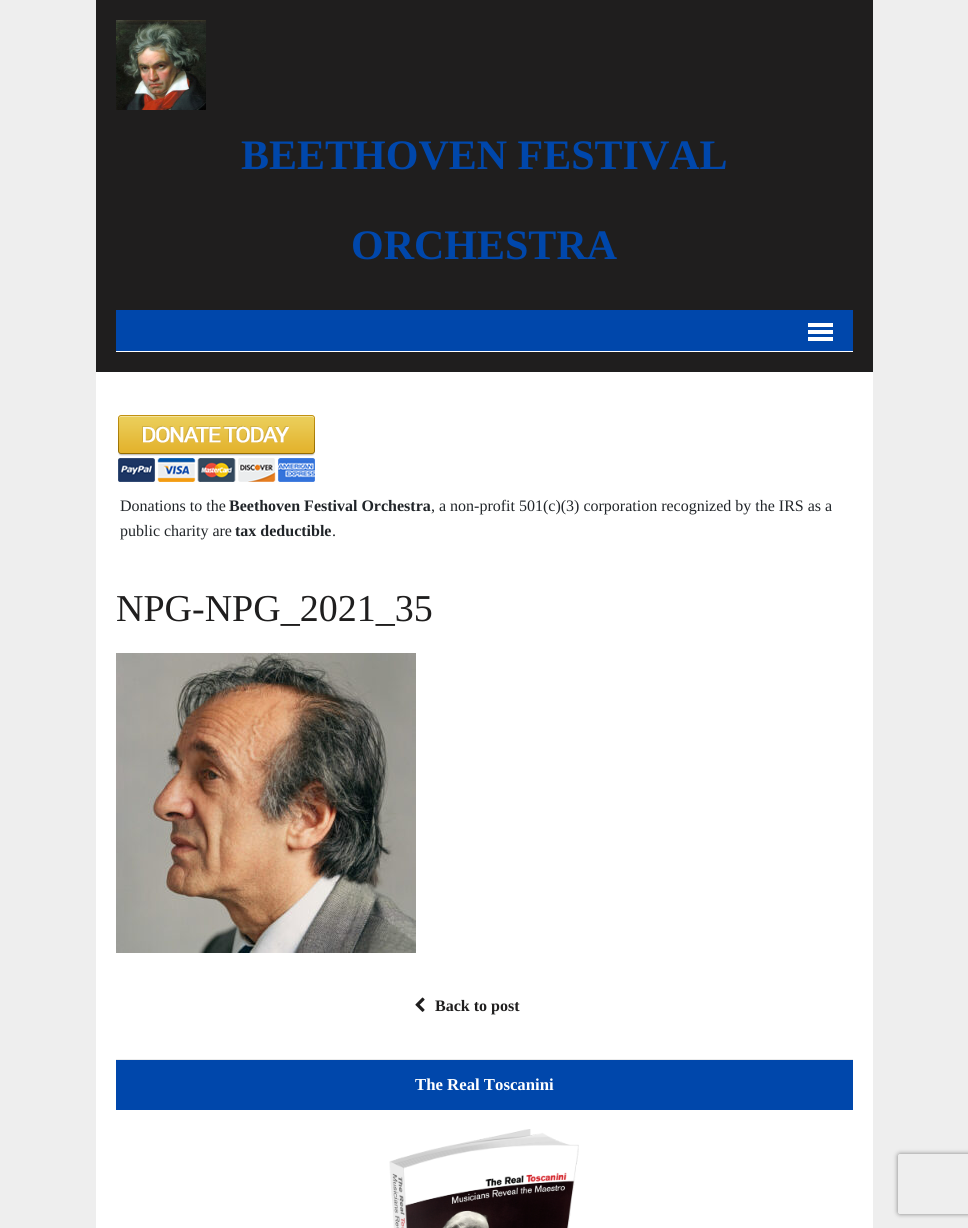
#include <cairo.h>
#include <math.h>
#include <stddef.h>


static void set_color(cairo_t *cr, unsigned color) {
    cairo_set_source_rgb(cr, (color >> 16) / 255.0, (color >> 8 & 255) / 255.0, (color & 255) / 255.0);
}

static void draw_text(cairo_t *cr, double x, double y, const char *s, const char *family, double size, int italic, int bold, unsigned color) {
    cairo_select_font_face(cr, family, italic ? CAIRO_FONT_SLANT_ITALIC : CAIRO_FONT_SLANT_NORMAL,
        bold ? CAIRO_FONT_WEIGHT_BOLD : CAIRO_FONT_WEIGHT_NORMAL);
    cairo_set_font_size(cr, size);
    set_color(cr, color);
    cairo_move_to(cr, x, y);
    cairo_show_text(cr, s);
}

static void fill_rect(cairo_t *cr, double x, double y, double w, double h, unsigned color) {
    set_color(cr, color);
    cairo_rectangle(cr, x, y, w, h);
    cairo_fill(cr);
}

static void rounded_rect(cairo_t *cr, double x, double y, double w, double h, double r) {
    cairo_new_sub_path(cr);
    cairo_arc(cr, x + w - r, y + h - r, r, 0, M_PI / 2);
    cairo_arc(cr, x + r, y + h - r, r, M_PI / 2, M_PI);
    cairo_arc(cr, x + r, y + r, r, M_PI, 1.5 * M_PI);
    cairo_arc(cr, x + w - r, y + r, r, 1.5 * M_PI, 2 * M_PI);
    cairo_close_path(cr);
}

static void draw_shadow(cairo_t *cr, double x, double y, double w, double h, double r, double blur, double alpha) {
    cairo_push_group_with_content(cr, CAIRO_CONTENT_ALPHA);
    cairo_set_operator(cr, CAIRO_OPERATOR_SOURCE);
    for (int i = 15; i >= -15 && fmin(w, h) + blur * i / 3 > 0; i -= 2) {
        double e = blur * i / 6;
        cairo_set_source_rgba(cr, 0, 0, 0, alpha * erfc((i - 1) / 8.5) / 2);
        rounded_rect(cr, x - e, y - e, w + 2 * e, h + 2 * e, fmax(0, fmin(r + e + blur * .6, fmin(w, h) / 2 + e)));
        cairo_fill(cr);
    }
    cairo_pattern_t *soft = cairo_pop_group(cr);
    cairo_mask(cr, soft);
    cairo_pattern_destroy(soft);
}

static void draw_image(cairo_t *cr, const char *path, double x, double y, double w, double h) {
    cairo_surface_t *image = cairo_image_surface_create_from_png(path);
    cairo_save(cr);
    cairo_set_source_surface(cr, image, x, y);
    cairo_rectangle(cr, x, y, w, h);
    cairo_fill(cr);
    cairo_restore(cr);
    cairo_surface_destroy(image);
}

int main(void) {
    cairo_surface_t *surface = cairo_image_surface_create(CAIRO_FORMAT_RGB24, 968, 1228);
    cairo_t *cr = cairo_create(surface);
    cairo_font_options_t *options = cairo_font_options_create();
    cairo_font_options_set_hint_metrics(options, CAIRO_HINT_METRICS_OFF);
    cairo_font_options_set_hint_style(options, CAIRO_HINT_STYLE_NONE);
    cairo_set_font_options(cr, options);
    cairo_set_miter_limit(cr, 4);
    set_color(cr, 0xEEEEEE);
    cairo_paint(cr);
    fill_rect(cr, 96, 372, 777, 856, 0xFFFFFF);
    fill_rect(cr, 96, 0, 777, 372, 0x1F1E1E);
    draw_image(cr, "assets/img1.png", 116, 20, 90, 90);
    draw_text(cr, 241, 169, "BEETHOVEN FESTIVAL", "Liberation Serif", 42, 0, 1, 0x0047AB);
    draw_text(cr, 351, 259, "ORCHESTRA", "Liberation Serif", 42, 0, 1, 0x0047AB);
    fill_rect(cr, 116, 310, 737, 41, 0x0047AB);
    fill_rect(cr, 116, 351, 737, 1, 0xFFFFFF);
    fill_rect(cr, 808, 323, 25, 4, 0xFFFFFF);
    fill_rect(cr, 808, 330, 25, 4, 0xFFFFFF);
    fill_rect(cr, 808, 337, 25, 4, 0xFFFFFF);
    draw_image(cr, "assets/img2.png", 118, 415, 197, 67);
    draw_text(cr, 120, 511, "Donations to the", "Liberation Serif", 16, 0, 0, 0x212529);
    draw_text(cr, 229, 511, "Beethoven Festival Orchestra", "Liberation Serif", 16, 0, 1, 0x212529);
    draw_text(cr, 431, 511, ", a non-profit 501(c)(3) corporation recognized by the IRS as a", "Liberation Serif", 16, 0, 0, 0x212529);
    draw_text(cr, 120, 536, "public charity are", "Liberation Serif", 16, 0, 0, 0x212529);
    draw_text(cr, 235, 536, "tax deductible", "Liberation Serif", 16, 0, 1, 0x212529);
    draw_text(cr, 332, 536, ".", "Liberation Serif", 16, 0, 0, 0x212529);
    draw_text(cr, 116, 621, "NPG-NPG_2021_35", "Liberation Serif", 38, 0, 0, 0x1F1E1E);
    draw_image(cr, "assets/img3.png", 116, 653, 300, 300);
    draw_image(cr, "assets/img4.png", 415, 997, 10, 15);
    draw_text(cr, 435, 1011, "Back to post", "Liberation Serif", 16, 0, 1, 0x1F1E1E);
    fill_rect(cr, 116, 1060, 737, 50, 0x0047AB);
    fill_rect(cr, 116, 1059, 737, 1, 0xEBEBEB);
    draw_text(cr, 415, 1090, "The Real Toscanini", "Liberation Serif", 16.75, 0, 1, 0xFFFFFF);
    draw_image(cr, "assets/img5.png", 389, 1129, 190, 99);
    cairo_save(cr);
    cairo_set_fill_rule(cr, CAIRO_FILL_RULE_EVEN_ODD);
    cairo_new_path(cr);
    cairo_move_to(cr, 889, 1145);
    cairo_line_to(cr, 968, 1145);
    cairo_line_to(cr, 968, 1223);
    cairo_line_to(cr, 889, 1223);
    cairo_close_path(cr);
    cairo_move_to(cr, 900, 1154);
    cairo_line_to(cr, 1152, 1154);
    cairo_curve_to(cr, 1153, 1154, 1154, 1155, 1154, 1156);
    cairo_line_to(cr, 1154, 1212);
    cairo_curve_to(cr, 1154, 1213, 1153, 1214, 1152, 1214);
    cairo_line_to(cr, 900, 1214);
    cairo_curve_to(cr, 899, 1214, 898, 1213, 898, 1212);
    cairo_line_to(cr, 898, 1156);
    cairo_curve_to(cr, 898, 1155, 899, 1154, 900, 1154);
    cairo_close_path(cr);
    cairo_clip(cr);
    set_color(cr, 0x808080);
    draw_shadow(cr, 898, 1154, 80, 60, 2, 2.5, 1);
    cairo_restore(cr);
    cairo_surface_write_to_png(surface, "output.png");
    cairo_font_options_destroy(options);
    cairo_destroy(cr);
    cairo_surface_destroy(surface);
    return 0;
}
